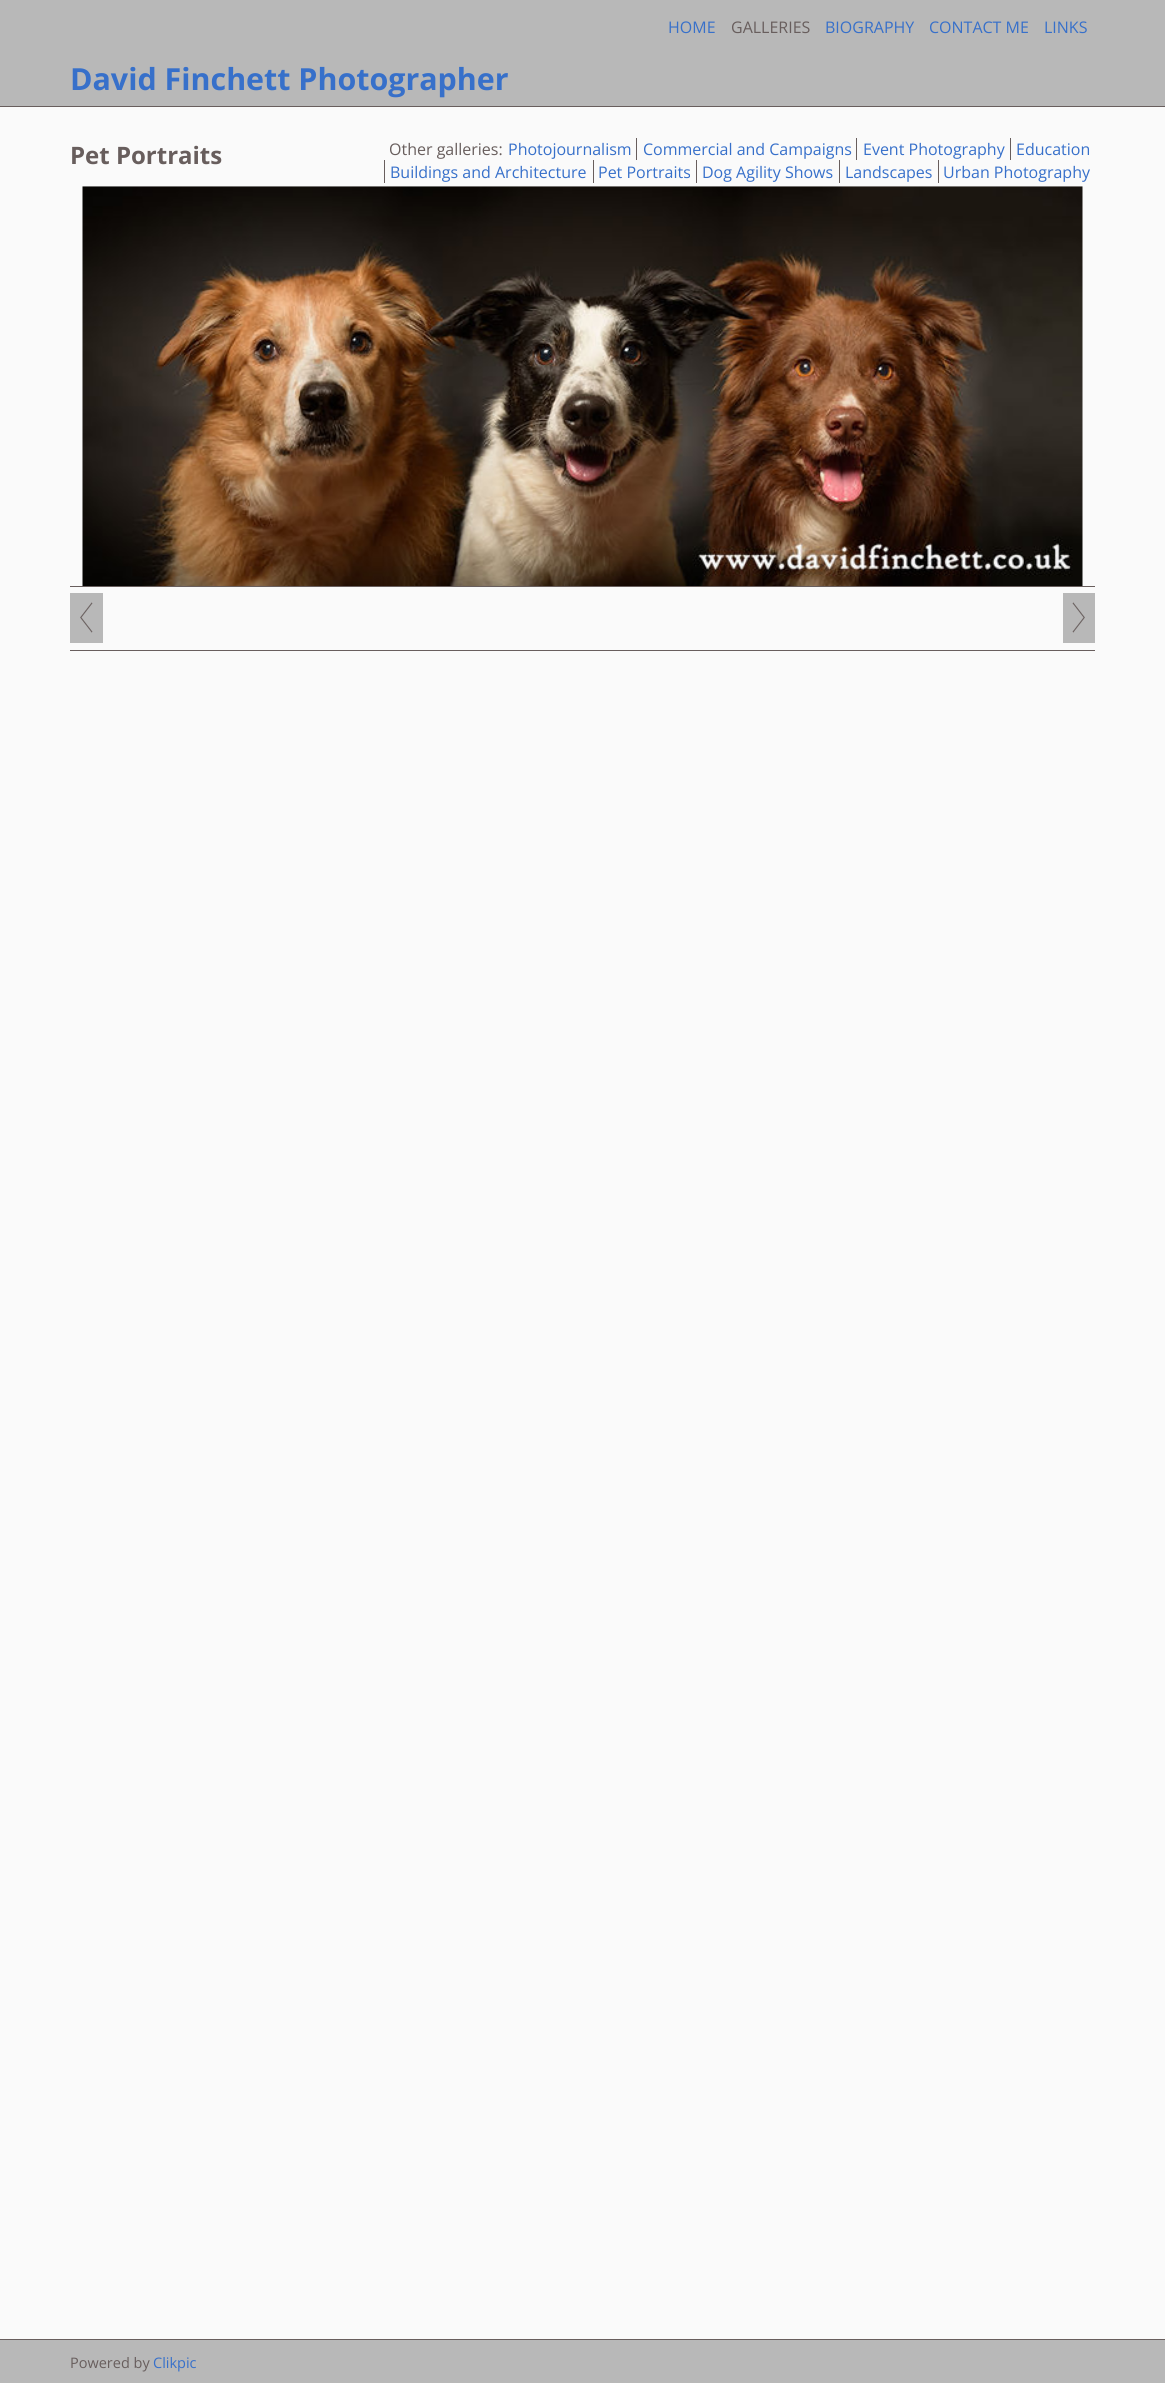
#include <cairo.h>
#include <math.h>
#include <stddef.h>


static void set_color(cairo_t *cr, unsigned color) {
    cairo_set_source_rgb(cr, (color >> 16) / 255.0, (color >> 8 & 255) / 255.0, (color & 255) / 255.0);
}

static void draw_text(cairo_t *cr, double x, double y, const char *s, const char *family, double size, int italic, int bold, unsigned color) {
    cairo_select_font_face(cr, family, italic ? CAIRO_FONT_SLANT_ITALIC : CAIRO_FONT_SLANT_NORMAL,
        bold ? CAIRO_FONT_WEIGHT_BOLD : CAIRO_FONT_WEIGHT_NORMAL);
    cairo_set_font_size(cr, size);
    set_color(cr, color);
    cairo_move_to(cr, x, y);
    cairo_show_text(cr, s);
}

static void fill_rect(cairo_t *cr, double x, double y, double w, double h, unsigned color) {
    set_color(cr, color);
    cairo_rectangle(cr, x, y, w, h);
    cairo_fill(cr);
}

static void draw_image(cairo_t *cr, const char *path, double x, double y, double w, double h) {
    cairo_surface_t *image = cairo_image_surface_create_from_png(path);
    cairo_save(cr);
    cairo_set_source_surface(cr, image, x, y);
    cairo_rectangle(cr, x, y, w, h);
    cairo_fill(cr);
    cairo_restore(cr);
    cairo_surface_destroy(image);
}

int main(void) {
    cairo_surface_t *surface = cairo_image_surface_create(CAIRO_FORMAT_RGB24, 1165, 2383);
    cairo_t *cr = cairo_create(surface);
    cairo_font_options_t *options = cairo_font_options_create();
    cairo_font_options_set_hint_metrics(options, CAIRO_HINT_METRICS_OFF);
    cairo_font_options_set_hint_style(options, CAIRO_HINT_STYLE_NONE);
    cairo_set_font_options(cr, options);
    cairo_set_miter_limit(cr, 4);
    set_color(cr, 0xFAFAFA);
    cairo_paint(cr);
    fill_rect(cr, 0, 0, 1165, 106, 0xB8B8B8);
    fill_rect(cr, 0, 106, 1165, 1, 0x685E5D);
    draw_text(cr, 668, 33, "HOME", "Open Sans", 16, 0, 0, 0x3770CA);
    draw_text(cr, 731, 33, "GALLERIES", "Open Sans", 16, 0, 0, 0x685E5D);
    draw_text(cr, 825, 33, "BIOGRAPHY", "Open Sans", 16, 0, 0, 0x3770CA);
    draw_text(cr, 929, 33, "CONTACT ME", "Open Sans", 16, 0, 0, 0x3770CA);
    draw_text(cr, 1044, 33, "LINKS", "Open Sans", 16, 0, 0, 0x3770CA);
    draw_text(cr, 70, 90, "David Finchett Photographer", "Open Sans", 30.4, 0, 1, 0x3770CA);
    draw_text(cr, 70, 164, "Pet Portraits", "Open Sans", 24, 0, 1, 0x685E5D);
    draw_text(cr, 389, 155, "Other galleries:", "Open Sans", 16, 0, 0, 0x685E5D);
    draw_text(cr, 508, 155, "Photojournalism", "Open Sans", 16, 0, 0, 0x3770CA);
    fill_rect(cr, 636, 138, 1, 22, 0x685E5D);
    draw_text(cr, 643, 155, "Commercial and Campaigns", "Open Sans", 16, 0, 0, 0x3770CA);
    fill_rect(cr, 856, 138, 1, 22, 0x685E5D);
    draw_text(cr, 863, 155, "Event Photography", "Open Sans", 16, 0, 0, 0x3770CA);
    fill_rect(cr, 1010, 138, 1, 22, 0x685E5D);
    draw_text(cr, 1016, 155, "Education", "Open Sans", 16, 0, 0, 0x3770CA);
    fill_rect(cr, 384, 160, 1, 23, 0x685E5D);
    draw_text(cr, 390, 178, "Buildings and Architecture", "Open Sans", 16, 0, 0, 0x3770CA);
    fill_rect(cr, 593, 160, 1, 23, 0x685E5D);
    draw_text(cr, 598, 178, "Pet Portraits", "Open Sans", 16, 0, 0, 0x3770CA);
    fill_rect(cr, 696, 160, 1, 23, 0x685E5D);
    draw_text(cr, 702, 178, "Dog Agility Shows", "Open Sans", 16, 0, 0, 0x3770CA);
    fill_rect(cr, 839, 160, 1, 23, 0x685E5D);
    draw_text(cr, 845, 178, "Landscapes", "Open Sans", 16, 0, 0, 0x3770CA);
    fill_rect(cr, 938, 160, 1, 23, 0x685E5D);
    draw_text(cr, 943, 178, "Urban Photography", "Open Sans", 16, 0, 0, 0x3770CA);
    draw_image(cr, "assets/img1.png", 82, 186, 1001, 400);
    fill_rect(cr, 70, 586, 1025, 1, 0x685E5D);
    fill_rect(cr, 70, 650, 1025, 1, 0x685E5D);
    fill_rect(cr, 70, 593, 33, 50, 0xB8B8B8);
    draw_image(cr, "assets/img2.png", 80, 602, 13, 31);
    fill_rect(cr, 1063, 593, 32, 50, 0xB8B8B8);
    draw_image(cr, "assets/img3.png", 1072, 602, 13, 31);
    fill_rect(cr, 0, 2340, 1165, 43, 0xB8B8B8);
    fill_rect(cr, 0, 2339, 1165, 1, 0x685E5D);
    draw_text(cr, 70, 2368, "Powered by", "Open Sans", 14.5, 0, 0, 0x685E5D);
    draw_text(cr, 153, 2368, "Clikpic", "Open Sans", 14.5, 0, 0, 0x3770CA);
    cairo_surface_write_to_png(surface, "output.png");
    cairo_font_options_destroy(options);
    cairo_destroy(cr);
    cairo_surface_destroy(surface);
    return 0;
}
